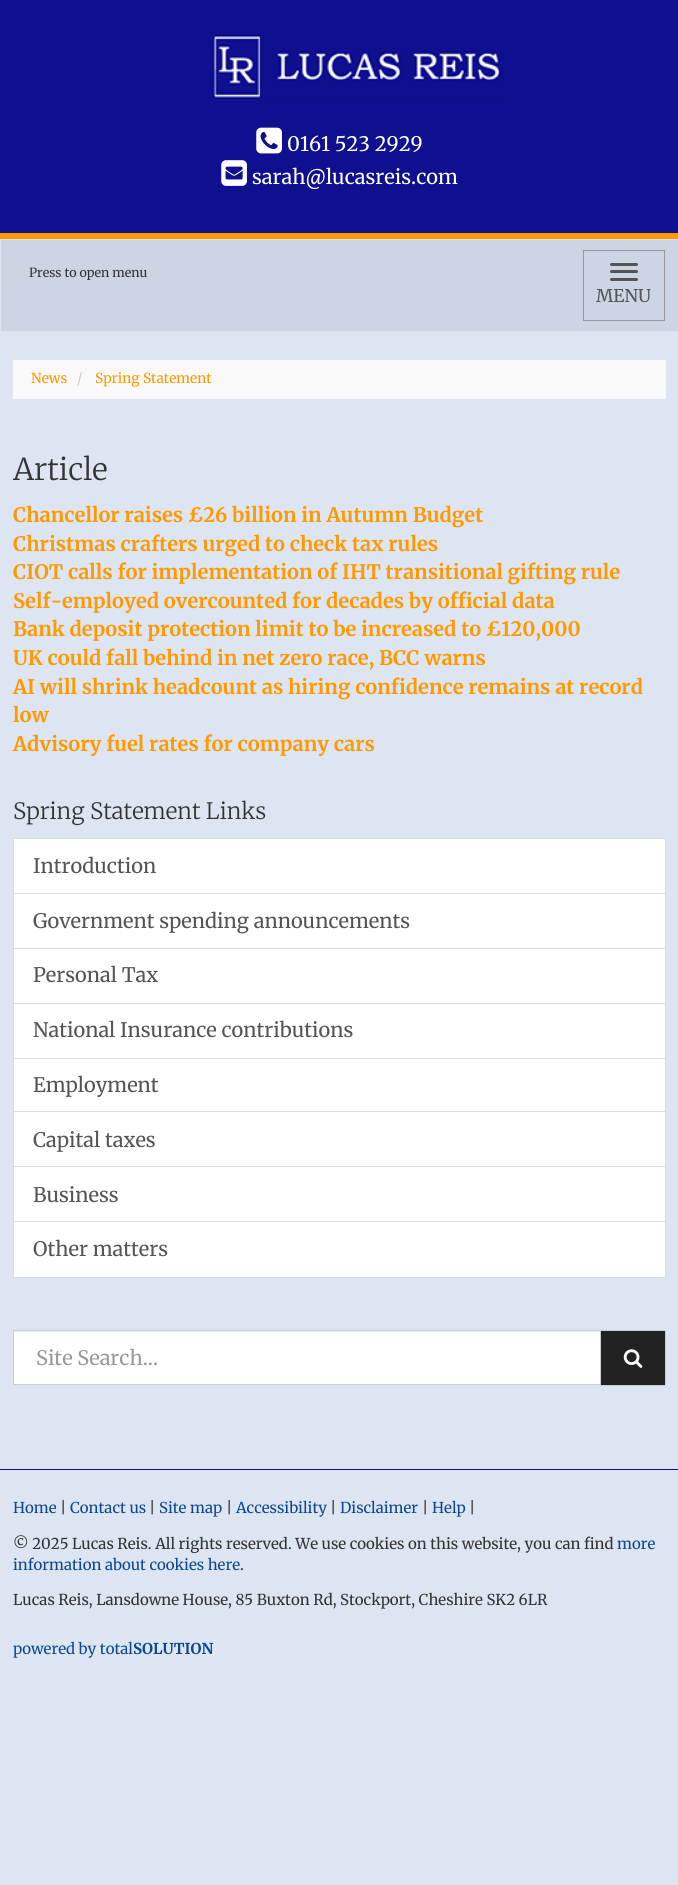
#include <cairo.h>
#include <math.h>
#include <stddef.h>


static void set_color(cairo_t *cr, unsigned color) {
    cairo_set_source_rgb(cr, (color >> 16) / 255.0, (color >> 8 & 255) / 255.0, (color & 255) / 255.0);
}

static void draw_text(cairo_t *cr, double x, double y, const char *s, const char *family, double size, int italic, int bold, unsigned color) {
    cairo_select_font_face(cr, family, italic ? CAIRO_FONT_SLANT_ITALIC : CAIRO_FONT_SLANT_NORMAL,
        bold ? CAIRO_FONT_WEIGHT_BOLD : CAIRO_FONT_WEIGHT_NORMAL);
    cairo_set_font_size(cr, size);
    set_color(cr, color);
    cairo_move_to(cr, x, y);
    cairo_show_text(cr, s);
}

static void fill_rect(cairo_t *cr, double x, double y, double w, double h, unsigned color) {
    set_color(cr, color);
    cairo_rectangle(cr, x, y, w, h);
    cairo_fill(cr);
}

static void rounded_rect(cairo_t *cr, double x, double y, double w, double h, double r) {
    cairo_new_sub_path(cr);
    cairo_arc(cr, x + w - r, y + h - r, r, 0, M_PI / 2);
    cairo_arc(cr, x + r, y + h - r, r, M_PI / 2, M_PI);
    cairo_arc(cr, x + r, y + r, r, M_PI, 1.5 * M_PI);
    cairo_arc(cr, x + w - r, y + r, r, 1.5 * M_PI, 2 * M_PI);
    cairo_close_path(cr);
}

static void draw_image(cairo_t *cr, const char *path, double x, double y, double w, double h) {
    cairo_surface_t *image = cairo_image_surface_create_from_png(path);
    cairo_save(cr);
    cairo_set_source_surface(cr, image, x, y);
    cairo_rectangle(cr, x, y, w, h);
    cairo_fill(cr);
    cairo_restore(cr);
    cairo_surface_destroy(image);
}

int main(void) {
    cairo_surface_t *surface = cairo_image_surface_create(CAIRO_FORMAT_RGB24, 678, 1885);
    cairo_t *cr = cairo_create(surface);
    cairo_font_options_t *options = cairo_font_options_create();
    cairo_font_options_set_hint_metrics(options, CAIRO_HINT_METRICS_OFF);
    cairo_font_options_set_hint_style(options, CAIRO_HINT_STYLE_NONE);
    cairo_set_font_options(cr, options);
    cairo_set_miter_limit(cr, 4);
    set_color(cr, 0xDDE5F2);
    cairo_paint(cr);
    fill_rect(cr, 0, 0, 678, 233, 0x0F0F8F);
    fill_rect(cr, 0, 233, 678, 6, 0xFF9900);
    draw_image(cr, "assets/img1.png", 212, 35, 290, 64);
    draw_image(cr, "assets/img2.png", 256, 127, 26, 27);
    draw_text(cr, 287, 151, "0161 523 2929", "Merriweather", 20, 0, 0, 0xFFFFFF);
    draw_image(cr, "assets/img3.png", 221, 160, 26, 26);
    draw_text(cr, 252, 184, "sarah@lucasreis.com", "Merriweather", 20, 0, 0, 0xFFFFFF);
    fill_rect(cr, 1, 240, 677, 91, 0xCCD5E4);
    draw_text(cr, 29, 277, "Press to open menu", "Merriweather", 12.5, 0, 0, 0x333333);
    cairo_rectangle(cr, 583.5, 250.5, 81, 70);
    set_color(cr, 0x999999);
    cairo_set_line_width(cr, 1);
    cairo_stroke(cr);
    set_color(cr, 0x555555);
    rounded_rect(cr, 610, 263, 28, 3, 1.5);
    cairo_fill(cr);
    rounded_rect(cr, 610, 270, 28, 3, 1.5);
    cairo_fill(cr);
    rounded_rect(cr, 610, 278, 28, 3, 1.5);
    cairo_fill(cr);
    draw_text(cr, 596, 302, "MENU", "Merriweather", 17.5, 0, 0, 0x555555);
    fill_rect(cr, 13, 360, 653, 39, 0xF9F9F9);
    draw_text(cr, 31, 383, "News", "Merriweather", 13.75, 0, 0, 0xFF9900);
    draw_text(cr, 77, 383, "/", "Merriweather", 13.75, 0, 0, 0xCCCCCC);
    draw_text(cr, 95, 383, "Spring Statement", "Merriweather", 13.75, 0, 0, 0xFF9900);
    draw_text(cr, 13, 480, "Article", "Merriweather Light", 30, 0, 0, 0x333333);
    draw_text(cr, 13, 522, "Chancellor raises £26 billion in Autumn Budget", "Merriweather", 20, 0, 1, 0xFF9900);
    draw_text(cr, 13, 551, "Christmas crafters urged to check tax rules", "Merriweather", 20, 0, 1, 0xFF9900);
    draw_text(cr, 13, 579, "CIOT calls for implementation of IHT transitional gifting rule", "Merriweather", 20, 0, 1, 0xFF9900);
    draw_text(cr, 13, 608, "Self-employed overcounted for decades by official data", "Merriweather", 20, 0, 1, 0xFF9900);
    draw_text(cr, 13, 636, "Bank deposit protection limit to be increased to £120,000", "Merriweather", 20, 0, 1, 0xFF9900);
    draw_text(cr, 13, 665, "UK could fall behind in net zero race, BCC warns", "Merriweather", 20, 0, 1, 0xFF9900);
    draw_text(cr, 13, 694, "AI will shrink headcount as hiring confidence remains at record", "Merriweather", 20, 0, 1, 0xFF9900);
    draw_text(cr, 13, 722, "low", "Merriweather", 20, 0, 1, 0xFF9900);
    draw_text(cr, 13, 751, "Advisory fuel rates for company cars", "Merriweather", 20, 0, 1, 0xFF9900);
    draw_text(cr, 13, 819, "Spring Statement Links", "Merriweather Light", 22.5, 0, 0, 0x333333);
    set_color(cr, 0xFFFFFF);
    cairo_rectangle(cr, 13.5, 838.5, 652, 55);
    cairo_fill_preserve(cr);
    set_color(cr, 0xDDDDDD);
    cairo_stroke(cr);
    draw_text(cr, 33, 873, "Introduction", "Merriweather", 20, 0, 0, 0x555555);
    set_color(cr, 0xFFFFFF);
    cairo_rectangle(cr, 13.5, 893.5, 652, 55);
    cairo_fill_preserve(cr);
    set_color(cr, 0xDDDDDD);
    cairo_stroke(cr);
    draw_text(cr, 33, 928, "Government spending announcements", "Merriweather", 20, 0, 0, 0x555555);
    set_color(cr, 0xFFFFFF);
    cairo_rectangle(cr, 13.5, 948.5, 652, 55);
    cairo_fill_preserve(cr);
    set_color(cr, 0xDDDDDD);
    cairo_stroke(cr);
    draw_text(cr, 33, 982, "Personal Tax", "Merriweather", 20, 0, 0, 0x555555);
    set_color(cr, 0xFFFFFF);
    cairo_rectangle(cr, 13.5, 1003.5, 652, 55);
    cairo_fill_preserve(cr);
    set_color(cr, 0xDDDDDD);
    cairo_stroke(cr);
    draw_text(cr, 33, 1037, "National Insurance contributions", "Merriweather", 20, 0, 0, 0x555555);
    fill_rect(cr, 14, 1059, 651, 52, 0xFFFFFF);
    cairo_rectangle(cr, 13.5, 1058.5, 652, 54);
    set_color(cr, 0xDDDDDD);
    cairo_stroke(cr);
    draw_text(cr, 33, 1092, "Employment", "Merriweather", 20, 0, 0, 0x555555);
    fill_rect(cr, 14, 1112, 651, 54, 0xFFFFFF);
    cairo_rectangle(cr, 13.5, 1111.5, 652, 56);
    set_color(cr, 0xDDDDDD);
    cairo_stroke(cr);
    draw_text(cr, 33, 1147, "Capital taxes", "Merriweather", 20, 0, 0, 0x555555);
    fill_rect(cr, 14, 1167, 651, 54, 0xFFFFFF);
    cairo_rectangle(cr, 13.5, 1166.5, 652, 56);
    set_color(cr, 0xDDDDDD);
    cairo_stroke(cr);
    draw_text(cr, 33, 1202, "Business", "Merriweather", 20, 0, 0, 0x555555);
    set_color(cr, 0xFFFFFF);
    cairo_rectangle(cr, 13.5, 1221.5, 652, 56);
    cairo_fill_preserve(cr);
    set_color(cr, 0xDDDDDD);
    cairo_stroke(cr);
    draw_text(cr, 33, 1256, "Other matters", "Merriweather", 20, 0, 0, 0x555555);
    fill_rect(cr, 14, 1332, 586, 52, 0xFFFFFF);
    fill_rect(cr, 14, 1331, 586, 1, 0xECECEC);
    set_color(cr, 0x222222);
    cairo_rectangle(cr, 600.5, 1330.5, 65, 55);
    cairo_fill_preserve(cr);
    set_color(cr, 0xCCCCCC);
    cairo_stroke(cr);
    cairo_rectangle(cr, 13.5, 1330.5, 587, 54);
    cairo_stroke(cr);
    draw_text(cr, 36, 1365, "Site Search...", "Merriweather", 20, 0, 0, 0x999999);
    draw_image(cr, "assets/img4.png", 623, 1349, 20, 19);
    fill_rect(cr, 0, 1469, 678, 1, 0x0F0F8F);
    draw_text(cr, 13, 1513, "Home", "Merriweather", 15, 0, 0, 0x0B488F);
    draw_text(cr, 60, 1513, "|", "Merriweather", 15, 0, 0, 0x333333);
    draw_text(cr, 70, 1513, "Contact us", "Merriweather", 15, 0, 0, 0x0B488F);
    draw_text(cr, 149, 1513, "|", "Merriweather", 15, 0, 0, 0x333333);
    draw_text(cr, 159, 1513, "Site map", "Merriweather", 15, 0, 0, 0x0B488F);
    draw_text(cr, 226, 1513, "|", "Merriweather", 15, 0, 0, 0x333333);
    draw_text(cr, 236, 1513, "Accessibility", "Merriweather", 15, 0, 0, 0x0B488F);
    draw_text(cr, 330, 1513, "|", "Merriweather", 15, 0, 0, 0x333333);
    draw_text(cr, 340, 1513, "Disclaimer", "Merriweather", 15, 0, 0, 0x0B488F);
    draw_text(cr, 422, 1513, "|", "Merriweather", 15, 0, 0, 0x333333);
    draw_text(cr, 432, 1513, "Help", "Merriweather", 15, 0, 0, 0x0B488F);
    draw_text(cr, 469, 1513, "|", "Merriweather", 15, 0, 0, 0x333333);
    draw_text(cr, 13, 1549, "© 2025 Lucas Reis. All rights reserved. We use cookies on this website, you can find", "Merriweather", 15, 0, 0, 0x333333);
    draw_text(cr, 617, 1549, "more", "Merriweather", 15, 0, 0, 0x0B488F);
    draw_text(cr, 13, 1570, "information about cookies here", "Merriweather", 15, 0, 0, 0x0B488F);
    draw_text(cr, 240, 1570, ".", "Merriweather", 15, 0, 0, 0x333333);
    draw_text(cr, 13, 1605, "Lucas Reis, Lansdowne House, 85 Buxton Rd, Stockport, Cheshire SK2 6LR", "Merriweather", 15, 0, 0, 0x333333);
    draw_text(cr, 13, 1654, "powered by total", "Merriweather", 15, 0, 0, 0x0B488F);
    draw_text(cr, 133, 1654, "SOLUTION", "Merriweather", 15, 0, 1, 0x0B488F);
    cairo_surface_write_to_png(surface, "output.png");
    cairo_font_options_destroy(options);
    cairo_destroy(cr);
    cairo_surface_destroy(surface);
    return 0;
}
